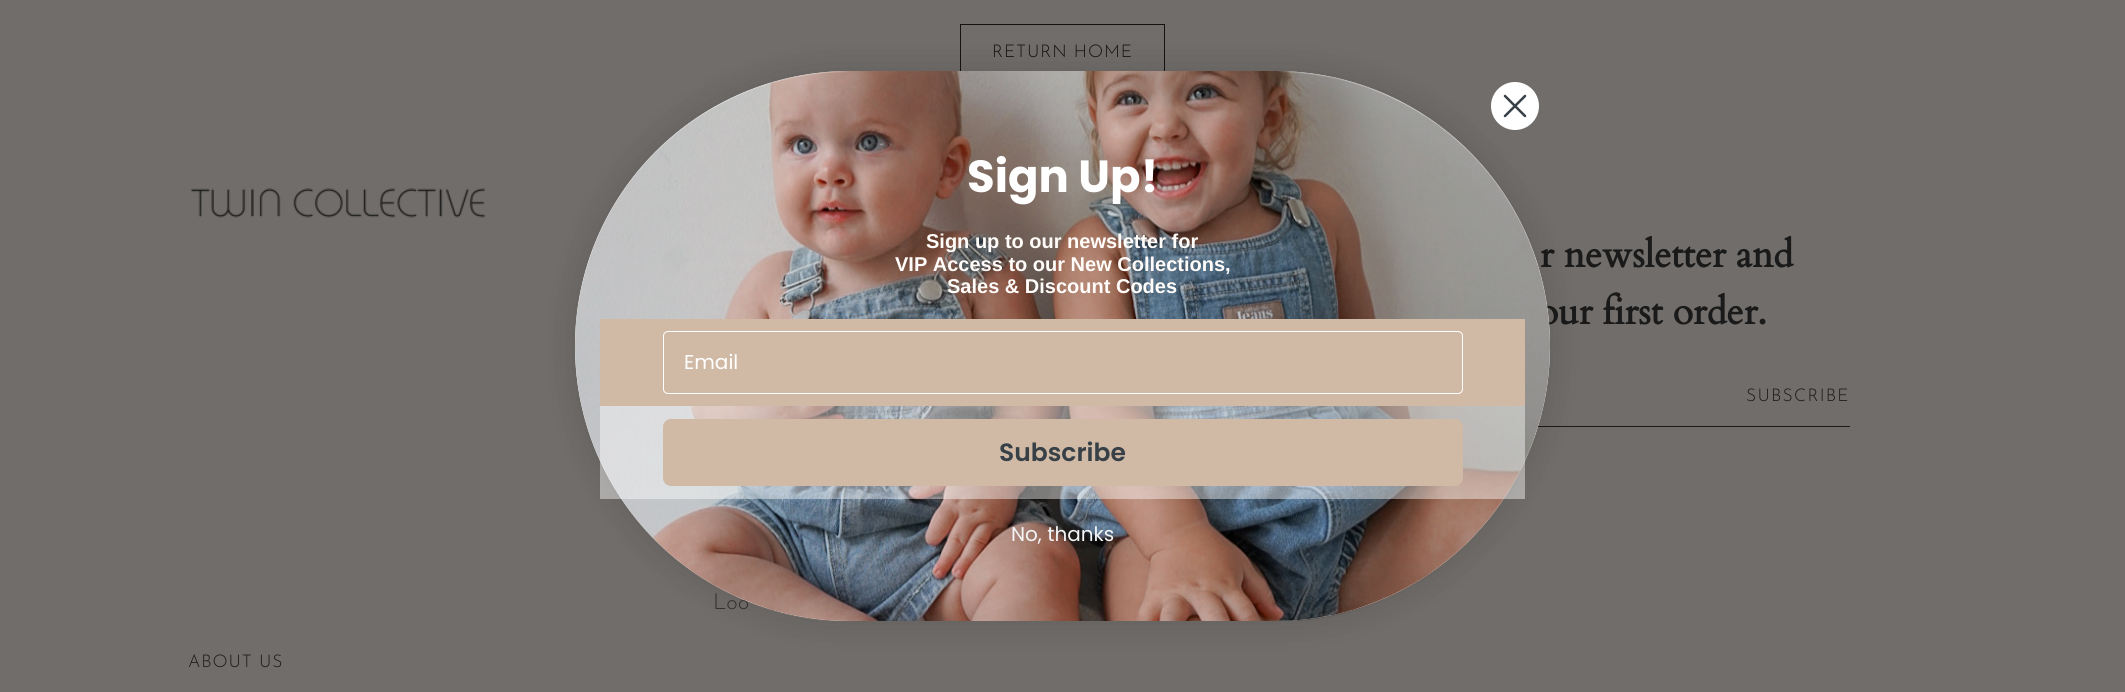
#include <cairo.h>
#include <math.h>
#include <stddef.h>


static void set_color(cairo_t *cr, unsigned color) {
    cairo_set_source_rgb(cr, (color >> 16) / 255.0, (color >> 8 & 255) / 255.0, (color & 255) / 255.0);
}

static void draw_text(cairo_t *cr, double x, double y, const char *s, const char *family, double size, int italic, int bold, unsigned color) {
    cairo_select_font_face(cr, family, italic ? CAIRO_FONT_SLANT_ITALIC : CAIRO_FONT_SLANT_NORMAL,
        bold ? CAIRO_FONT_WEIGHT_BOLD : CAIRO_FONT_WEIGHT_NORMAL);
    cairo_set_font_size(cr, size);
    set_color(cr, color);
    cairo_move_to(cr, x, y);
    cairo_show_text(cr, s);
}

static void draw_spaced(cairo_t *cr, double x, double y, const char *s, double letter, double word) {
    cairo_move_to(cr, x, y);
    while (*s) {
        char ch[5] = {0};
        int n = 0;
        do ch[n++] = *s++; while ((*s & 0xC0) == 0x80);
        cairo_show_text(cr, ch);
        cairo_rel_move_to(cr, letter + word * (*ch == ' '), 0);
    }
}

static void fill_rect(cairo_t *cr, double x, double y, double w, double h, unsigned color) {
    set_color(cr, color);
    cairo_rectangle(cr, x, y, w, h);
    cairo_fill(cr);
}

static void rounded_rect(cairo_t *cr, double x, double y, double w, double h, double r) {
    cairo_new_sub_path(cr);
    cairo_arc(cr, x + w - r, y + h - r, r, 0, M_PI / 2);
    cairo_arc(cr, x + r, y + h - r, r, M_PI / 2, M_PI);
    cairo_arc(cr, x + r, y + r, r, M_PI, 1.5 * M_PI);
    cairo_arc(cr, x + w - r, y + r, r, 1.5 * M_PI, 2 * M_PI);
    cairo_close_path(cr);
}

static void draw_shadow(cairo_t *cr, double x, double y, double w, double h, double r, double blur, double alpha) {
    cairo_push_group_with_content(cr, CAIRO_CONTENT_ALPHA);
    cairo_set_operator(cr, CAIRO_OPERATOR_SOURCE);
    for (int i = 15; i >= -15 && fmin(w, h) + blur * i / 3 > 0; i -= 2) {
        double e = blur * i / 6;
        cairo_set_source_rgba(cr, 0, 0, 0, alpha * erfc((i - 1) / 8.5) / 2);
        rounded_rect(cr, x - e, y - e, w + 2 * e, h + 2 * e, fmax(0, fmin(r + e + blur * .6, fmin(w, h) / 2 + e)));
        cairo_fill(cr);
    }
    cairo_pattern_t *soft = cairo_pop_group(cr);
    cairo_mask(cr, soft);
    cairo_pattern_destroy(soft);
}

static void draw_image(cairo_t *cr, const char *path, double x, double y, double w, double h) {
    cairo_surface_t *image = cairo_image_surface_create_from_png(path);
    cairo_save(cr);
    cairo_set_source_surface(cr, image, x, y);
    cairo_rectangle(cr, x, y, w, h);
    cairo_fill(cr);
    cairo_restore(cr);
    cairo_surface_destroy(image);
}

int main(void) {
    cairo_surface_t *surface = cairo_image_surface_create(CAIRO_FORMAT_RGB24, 2125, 692);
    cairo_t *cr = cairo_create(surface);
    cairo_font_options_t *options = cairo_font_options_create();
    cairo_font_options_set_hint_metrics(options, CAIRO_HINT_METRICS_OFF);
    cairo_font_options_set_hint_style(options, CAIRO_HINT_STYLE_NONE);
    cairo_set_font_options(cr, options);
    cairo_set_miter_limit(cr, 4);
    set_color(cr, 0x706D6A);
    cairo_paint(cr);
    cairo_rectangle(cr, 960.5, 24.5, 204, 59);
    set_color(cr, 0x131313);
    cairo_set_line_width(cr, 1);
    cairo_stroke(cr);
    cairo_select_font_face(cr, "Josefin Sans Light", CAIRO_FONT_SLANT_NORMAL, CAIRO_FONT_WEIGHT_NORMAL);
    cairo_set_font_size(cr, 17.5);
    draw_spaced(cr, 992, 57, "RETURN HOME", 0.9, 0);
    draw_image(cr, "assets/img1.png", 191, 188, 295, 30);
    draw_text(cr, 1540, 267, "r newsletter and", "Cardo", 37.5, 0, 1, 0x1A1A1A);
    draw_text(cr, 1538, 324, "our first order.", "Cardo", 37.5, 0, 1, 0x1A1A1A);
    cairo_select_font_face(cr, "Josefin Sans Light", CAIRO_FONT_SLANT_NORMAL, CAIRO_FONT_WEIGHT_NORMAL);
    cairo_set_font_size(cr, 17.5);
    draw_spaced(cr, 1746, 401, "SUBSCRIBE", 1.25, 0);
    fill_rect(cr, 1537, 426, 313, 1, 0x1A1A1A);
    draw_text(cr, 713, 609, "Loo", "Josefin Sans Light", 22, 0, 0, 0x343232);
    cairo_set_font_size(cr, 17.5);
    set_color(cr, 0x1A1A1A);
    draw_spaced(cr, 188, 667, "ABOUT US", 0.9, 0);
    set_color(cr, 0x000000);
    draw_shadow(cr, 575, 71, 975, 550, 275, 19, 0.15);
    set_color(cr, 0xFFFFFF);
    rounded_rect(cr, 575, 71, 975, 550, 275);
    cairo_fill(cr);
    draw_image(cr, "assets/img2.png", 575, 71, 975, 550);
    cairo_arc(cr, 1515, 106, 24, 0, 2 * M_PI);
    cairo_fill(cr);
    cairo_new_path(cr);
    cairo_move_to(cr, 1505, 96);
    cairo_line_to(cr, 1525, 116);
    cairo_move_to(cr, 1505, 116);
    cairo_line_to(cr, 1525, 96);
    cairo_close_path(cr);
    set_color(cr, 0x373F47);
    cairo_set_line_width(cr, 2.5);
    cairo_set_line_cap(cr, CAIRO_LINE_CAP_ROUND);
    cairo_set_line_join(cr, CAIRO_LINE_JOIN_ROUND);
    cairo_stroke(cr);
    draw_text(cr, 967, 192, "Sign Up!", "Poppins", 45, 0, 1, 0xFFFFFF);
    draw_text(cr, 926, 248, "Sign up to our newsletter for", "Liberation Sans", 20, 0, 1, 0xFFFCF9);
    draw_text(cr, 895, 271, "VIP Access to our New Collections,", "Liberation Sans", 20, 0, 1, 0xFFFCF9);
    draw_text(cr, 947, 293, "Sales & Discount Codes", "Liberation Sans", 20, 0, 1, 0xFFFCF9);
    fill_rect(cr, 600, 319, 925, 87, 0xD0BAA5);
    rounded_rect(cr, 663.5, 331.5, 799, 62, 4.5);
    set_color(cr, 0xFFFFFF);
    cairo_set_line_width(cr, 1);
    cairo_set_line_cap(cr, CAIRO_LINE_CAP_BUTT);
    cairo_set_line_join(cr, CAIRO_LINE_JOIN_MITER);
    cairo_stroke(cr);
    draw_text(cr, 684, 369, "Email", "Poppins", 20, 0, 0, 0xFFFFFF);
    cairo_set_source_rgba(cr, 1, 1, 1, 0.43);
    cairo_rectangle(cr, 600, 406, 925, 93);
    cairo_fill(cr);
    set_color(cr, 0xD0BAA5);
    rounded_rect(cr, 663, 419, 800, 67, 8);
    cairo_fill(cr);
    draw_text(cr, 999, 461, "Subscribe", "Poppins SemiBold", 25, 0, 0, 0x373F47);
    draw_text(cr, 1011, 541, "No, thanks", "Poppins", 20, 0, 0, 0xF3F5F6);
    cairo_surface_write_to_png(surface, "output.png");
    cairo_font_options_destroy(options);
    cairo_destroy(cr);
    cairo_surface_destroy(surface);
    return 0;
}
